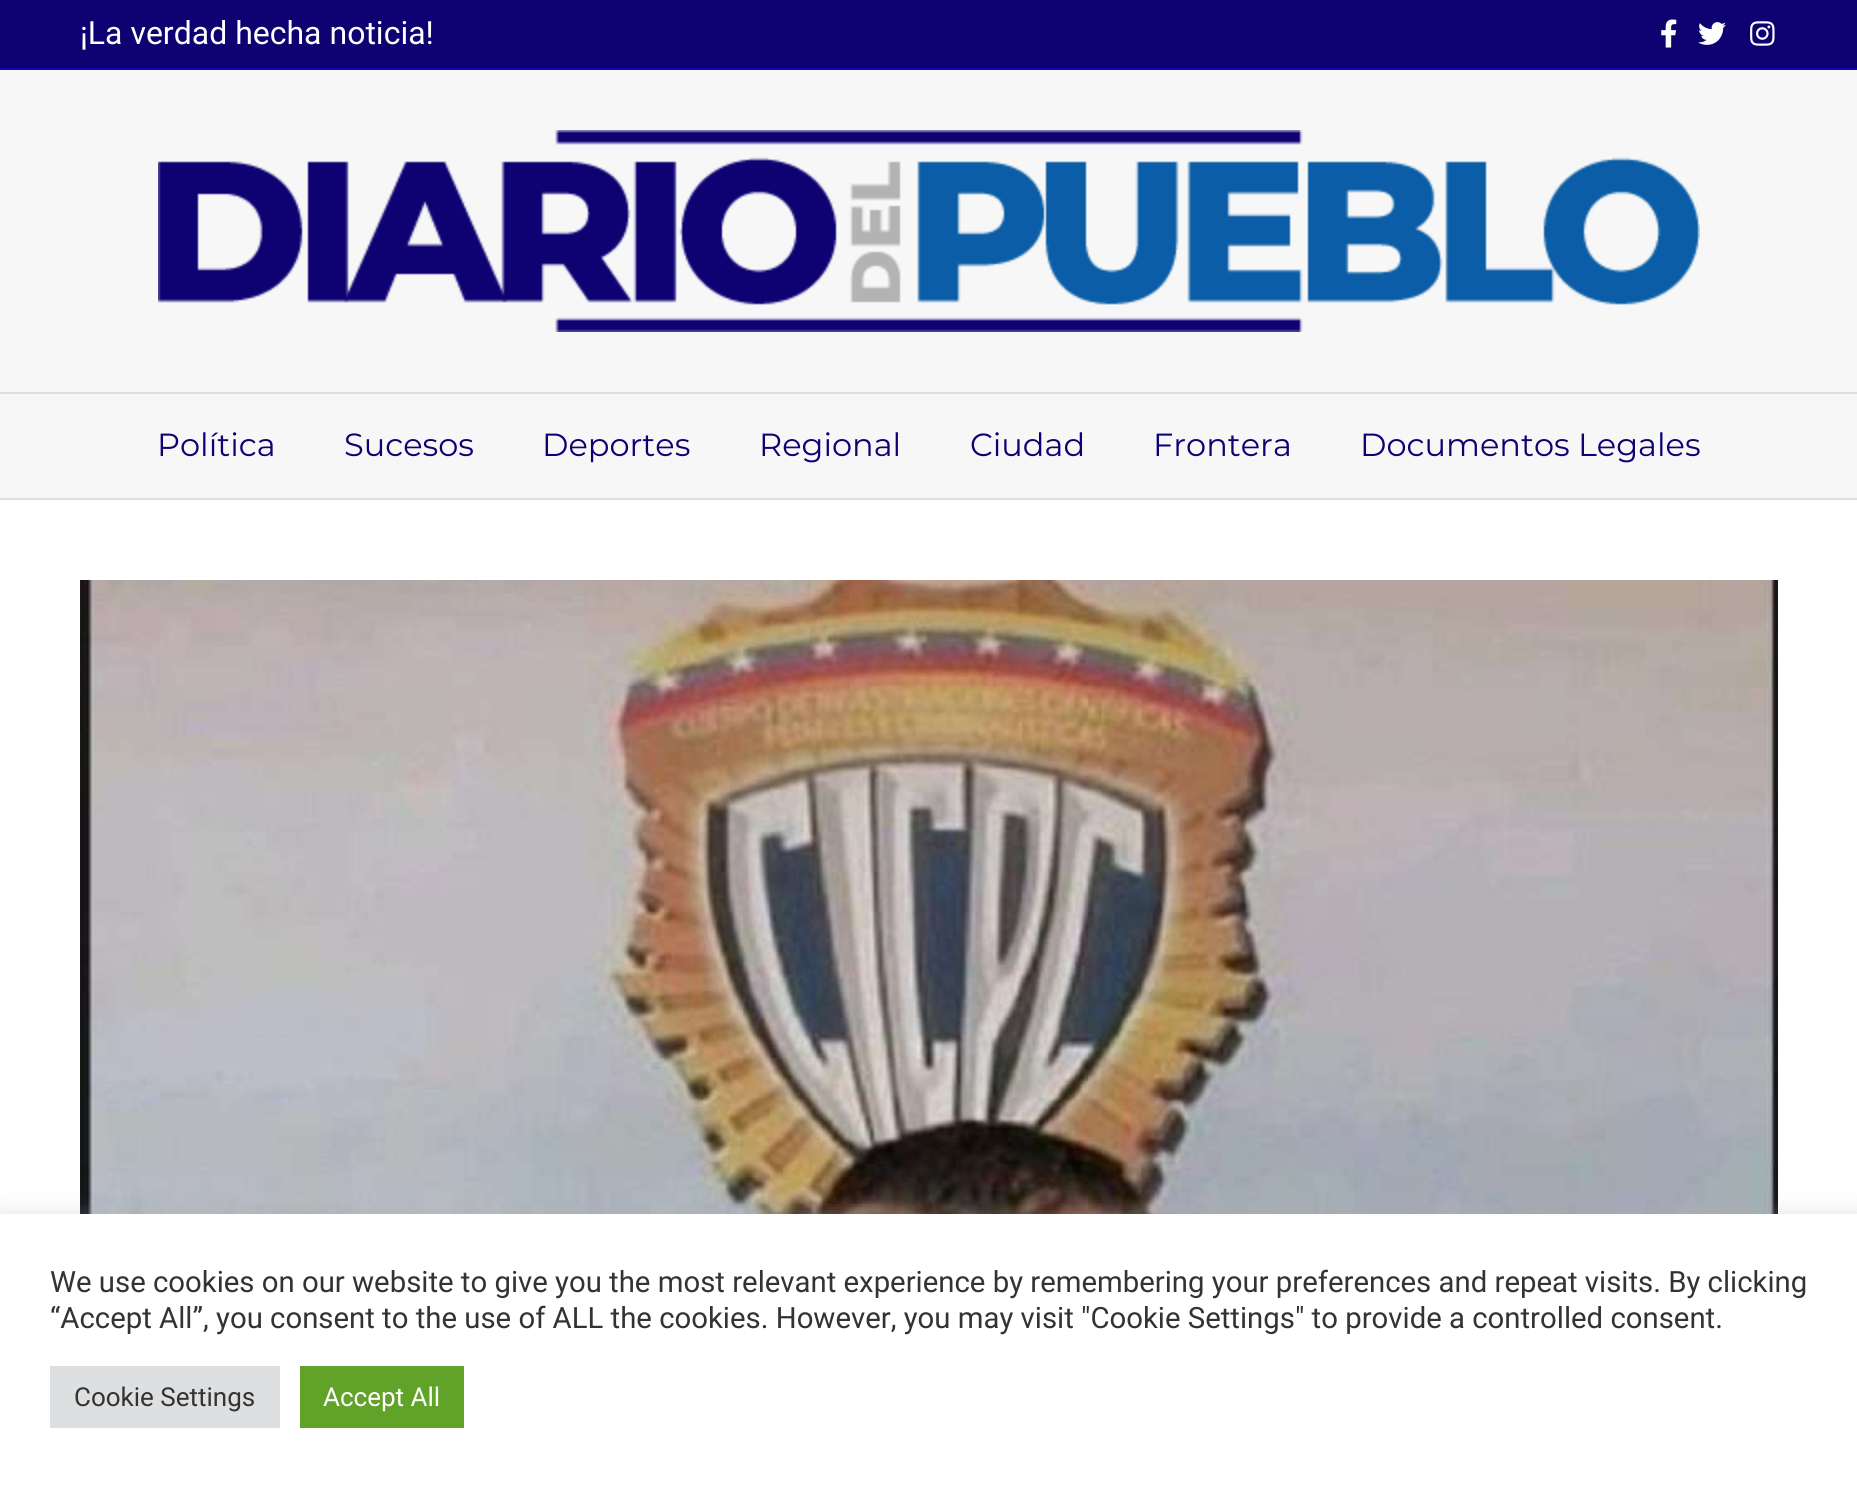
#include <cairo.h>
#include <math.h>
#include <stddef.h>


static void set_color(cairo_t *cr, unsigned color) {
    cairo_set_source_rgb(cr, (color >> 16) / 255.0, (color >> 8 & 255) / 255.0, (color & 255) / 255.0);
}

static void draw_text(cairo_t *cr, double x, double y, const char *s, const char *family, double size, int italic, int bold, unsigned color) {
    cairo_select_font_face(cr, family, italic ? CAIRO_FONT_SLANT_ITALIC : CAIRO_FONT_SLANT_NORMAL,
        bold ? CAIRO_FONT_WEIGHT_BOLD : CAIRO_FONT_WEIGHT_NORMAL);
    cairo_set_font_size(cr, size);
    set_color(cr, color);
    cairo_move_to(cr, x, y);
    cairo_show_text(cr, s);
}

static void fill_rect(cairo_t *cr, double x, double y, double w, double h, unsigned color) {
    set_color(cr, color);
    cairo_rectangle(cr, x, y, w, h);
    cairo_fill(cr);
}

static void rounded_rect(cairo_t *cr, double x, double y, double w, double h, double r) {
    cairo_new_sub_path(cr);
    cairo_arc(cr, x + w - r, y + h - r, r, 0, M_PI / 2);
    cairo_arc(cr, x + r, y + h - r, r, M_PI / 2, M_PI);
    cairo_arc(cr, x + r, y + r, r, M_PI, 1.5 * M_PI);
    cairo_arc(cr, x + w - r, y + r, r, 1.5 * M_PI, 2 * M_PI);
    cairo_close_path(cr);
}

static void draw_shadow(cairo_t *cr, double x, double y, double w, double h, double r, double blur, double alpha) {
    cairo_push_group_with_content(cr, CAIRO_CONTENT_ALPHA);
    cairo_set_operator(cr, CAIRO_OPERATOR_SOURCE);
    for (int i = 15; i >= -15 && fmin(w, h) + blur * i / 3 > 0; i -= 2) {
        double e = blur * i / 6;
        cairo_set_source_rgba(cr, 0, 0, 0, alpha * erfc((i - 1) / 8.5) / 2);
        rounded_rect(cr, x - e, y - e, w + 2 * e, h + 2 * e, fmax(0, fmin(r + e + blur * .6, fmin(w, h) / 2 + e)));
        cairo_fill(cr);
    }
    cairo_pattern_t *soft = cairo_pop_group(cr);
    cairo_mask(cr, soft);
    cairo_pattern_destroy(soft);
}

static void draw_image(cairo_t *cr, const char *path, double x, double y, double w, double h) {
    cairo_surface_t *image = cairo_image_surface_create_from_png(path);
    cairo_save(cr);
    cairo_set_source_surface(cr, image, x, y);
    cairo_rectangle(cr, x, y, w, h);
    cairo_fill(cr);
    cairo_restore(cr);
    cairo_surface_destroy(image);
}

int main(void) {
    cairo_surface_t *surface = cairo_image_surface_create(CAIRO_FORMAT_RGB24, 1857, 1487);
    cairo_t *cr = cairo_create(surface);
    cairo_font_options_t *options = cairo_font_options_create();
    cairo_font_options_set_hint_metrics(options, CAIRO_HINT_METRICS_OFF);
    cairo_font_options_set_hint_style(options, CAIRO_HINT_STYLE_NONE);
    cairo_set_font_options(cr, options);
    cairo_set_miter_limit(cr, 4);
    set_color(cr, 0x0E0273);
    cairo_paint(cr);
    fill_rect(cr, 0, 68, 1857, 2, 0x1603B4);
    draw_text(cr, 80, 44, "¡La verdad hecha noticia!", "Roboto", 32, 0, 0, 0xFFFFFF);
    draw_image(cr, "assets/img1.png", 1661, 19, 16, 29);
    draw_image(cr, "assets/img2.png", 1698, 22, 28, 23);
    draw_image(cr, "assets/img3.png", 1750, 21, 25, 25);
    fill_rect(cr, 0, 70, 1857, 428, 0xF7F7F7);
    draw_image(cr, "assets/img4.png", 158, 130, 1542, 202);
    fill_rect(cr, 0, 392, 1857, 2, 0xDEDEDE);
    fill_rect(cr, 0, 498, 1857, 2, 0xDEDEDE);
    draw_text(cr, 157, 456, "Política", "Montserrat", 32, 0, 0, 0x0E0273);
    draw_text(cr, 344, 456, "Sucesos", "Montserrat", 32, 0, 0, 0x0E0273);
    draw_text(cr, 542, 456, "Deportes", "Montserrat", 32, 0, 0, 0x0E0273);
    draw_text(cr, 759, 456, "Regional", "Montserrat", 32, 0, 0, 0x0E0273);
    draw_text(cr, 970, 456, "Ciudad", "Montserrat", 32, 0, 0, 0x0E0273);
    draw_text(cr, 1153, 456, "Frontera", "Montserrat", 32, 0, 0, 0x0E0273);
    draw_text(cr, 1360, 456, "Documentos Legales", "Montserrat", 32, 0, 0, 0x0E0273);
    fill_rect(cr, 0, 500, 1857, 714, 0xFFFFFF);
    draw_image(cr, "assets/img5.png", 80, 580, 1698, 634);
    set_color(cr, 0xACABAB);
    draw_shadow(cr, 0, 1212, 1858, 274, 0, 10, 0.3);
    fill_rect(cr, 0, 1214, 1857, 273, 0xFFFFFF);
    draw_text(cr, 50, 1292, "We use cookies on our website to give you the most relevant experience by remembering your preferences and repeat visits. By clicking", "Roboto", 29.33, 0, 0, 0x333333);
    draw_text(cr, 50, 1328, "“Accept All”, you consent to the use of ALL the cookies. However, you may visit \"Cookie Settings\" to provide a controlled consent.", "Roboto", 29.33, 0, 0, 0x333333);
    fill_rect(cr, 50, 1366, 230, 62, 0xDEDFE0);
    draw_text(cr, 74, 1406, "Cookie Settings", "Roboto", 26, 0, 0, 0x333333);
    fill_rect(cr, 300, 1366, 164, 62, 0x61A229);
    draw_text(cr, 323, 1406, "Accept All", "Roboto", 26, 0, 0, 0xFFFFFF);
    cairo_surface_write_to_png(surface, "output.png");
    cairo_font_options_destroy(options);
    cairo_destroy(cr);
    cairo_surface_destroy(surface);
    return 0;
}
